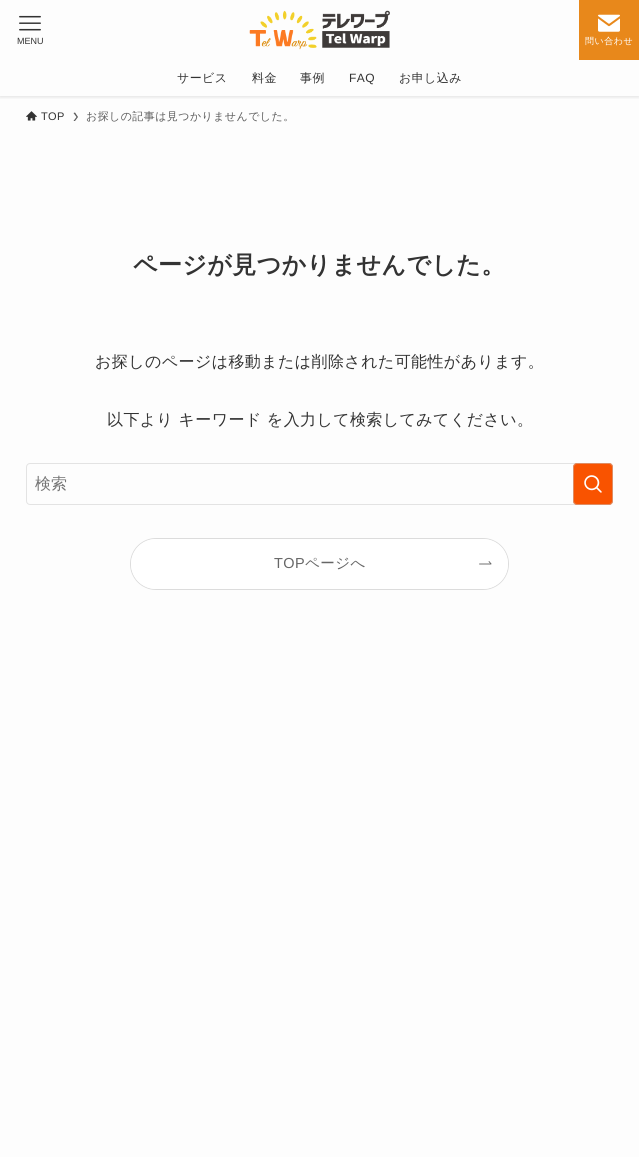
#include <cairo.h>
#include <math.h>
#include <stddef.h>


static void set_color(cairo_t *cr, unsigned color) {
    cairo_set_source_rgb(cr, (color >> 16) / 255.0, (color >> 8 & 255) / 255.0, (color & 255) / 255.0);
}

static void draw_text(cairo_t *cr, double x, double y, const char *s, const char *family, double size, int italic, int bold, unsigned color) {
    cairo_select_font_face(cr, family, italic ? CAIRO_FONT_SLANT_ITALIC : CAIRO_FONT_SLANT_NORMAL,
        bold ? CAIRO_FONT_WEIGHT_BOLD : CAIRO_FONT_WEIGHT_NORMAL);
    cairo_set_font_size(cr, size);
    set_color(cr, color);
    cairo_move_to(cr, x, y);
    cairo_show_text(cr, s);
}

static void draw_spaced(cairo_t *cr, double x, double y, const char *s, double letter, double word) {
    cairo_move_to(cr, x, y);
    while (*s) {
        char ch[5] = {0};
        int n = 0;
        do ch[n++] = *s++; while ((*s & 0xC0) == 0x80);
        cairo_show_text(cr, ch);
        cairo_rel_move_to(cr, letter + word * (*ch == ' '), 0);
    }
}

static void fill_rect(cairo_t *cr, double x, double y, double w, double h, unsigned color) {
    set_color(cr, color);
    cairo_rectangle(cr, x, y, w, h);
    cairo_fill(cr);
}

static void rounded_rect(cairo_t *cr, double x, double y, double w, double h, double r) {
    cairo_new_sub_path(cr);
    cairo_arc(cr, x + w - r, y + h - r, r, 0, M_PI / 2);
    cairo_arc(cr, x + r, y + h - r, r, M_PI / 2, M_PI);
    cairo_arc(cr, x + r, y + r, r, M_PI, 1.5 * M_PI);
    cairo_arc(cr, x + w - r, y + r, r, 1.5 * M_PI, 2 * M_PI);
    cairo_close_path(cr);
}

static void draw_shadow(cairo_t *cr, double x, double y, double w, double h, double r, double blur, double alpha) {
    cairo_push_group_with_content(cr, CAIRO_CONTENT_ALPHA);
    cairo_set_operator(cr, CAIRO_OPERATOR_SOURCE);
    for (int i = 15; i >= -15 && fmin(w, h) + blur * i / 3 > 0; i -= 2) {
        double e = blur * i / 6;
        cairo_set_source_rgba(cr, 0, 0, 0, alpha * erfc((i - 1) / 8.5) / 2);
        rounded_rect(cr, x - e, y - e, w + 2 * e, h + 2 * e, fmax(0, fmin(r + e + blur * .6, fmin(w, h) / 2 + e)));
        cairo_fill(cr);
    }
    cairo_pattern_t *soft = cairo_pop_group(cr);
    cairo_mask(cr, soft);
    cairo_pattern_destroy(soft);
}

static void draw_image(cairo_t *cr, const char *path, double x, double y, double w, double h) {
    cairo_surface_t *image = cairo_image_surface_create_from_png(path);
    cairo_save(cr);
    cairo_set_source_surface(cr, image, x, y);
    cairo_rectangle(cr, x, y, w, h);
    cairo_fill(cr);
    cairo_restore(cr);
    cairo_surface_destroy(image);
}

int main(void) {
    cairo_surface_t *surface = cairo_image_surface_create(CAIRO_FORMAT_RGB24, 639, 1157);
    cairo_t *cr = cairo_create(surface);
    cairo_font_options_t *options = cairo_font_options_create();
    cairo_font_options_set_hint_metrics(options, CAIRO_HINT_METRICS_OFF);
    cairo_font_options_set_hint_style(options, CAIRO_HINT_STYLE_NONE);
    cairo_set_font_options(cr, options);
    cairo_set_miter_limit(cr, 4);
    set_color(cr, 0xFDFDFD);
    cairo_paint(cr);
    cairo_save(cr);
    cairo_rectangle(cr, 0, 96, 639, 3);
    cairo_clip(cr);
    set_color(cr, 0x000000);
    draw_shadow(cr, 0, 1, 639, 96, 0, 2, 0.12);
    cairo_restore(cr);
    draw_image(cr, "assets/img1.png", 19, 15, 22, 16);
    draw_text(cr, 17, 44, "MENU", "Liberation Sans", 9, 0, 0, 0x333333);
    draw_image(cr, "assets/img2.png", 249, 10, 141, 40);
    fill_rect(cr, 579, 0, 60, 60, 0xE8881B);
    draw_image(cr, "assets/img3.png", 598, 14, 22, 18);
    cairo_select_font_face(cr, "WenQuanYi Zen Hei Medium", CAIRO_FONT_SLANT_NORMAL, CAIRO_FONT_WEIGHT_NORMAL);
    set_color(cr, 0xFFFFFF);
    draw_spaced(cr, 585, 44, "問い合わせ", 0.5, 0);
    cairo_set_font_size(cr, 12);
    set_color(cr, 0x333333);
    draw_spaced(cr, 177, 82, "サービス", 0.4, 0);
    draw_spaced(cr, 252, 82, "料金", 0.4, 0);
    draw_spaced(cr, 300, 82, "事例", 0.4, 0);
    cairo_select_font_face(cr, "Liberation Sans", CAIRO_FONT_SLANT_NORMAL, CAIRO_FONT_WEIGHT_NORMAL);
    draw_spaced(cr, 349, 82, "FAQ", 0.4, 0);
    cairo_select_font_face(cr, "WenQuanYi Zen Hei Medium", CAIRO_FONT_SLANT_NORMAL, CAIRO_FONT_WEIGHT_NORMAL);
    draw_spaced(cr, 399, 82, "お申し込み", 0.4, 0);
    draw_image(cr, "assets/img4.png", 26, 111, 11, 10);
    cairo_select_font_face(cr, "Liberation Sans", CAIRO_FONT_SLANT_NORMAL, CAIRO_FONT_WEIGHT_NORMAL);
    cairo_set_font_size(cr, 11);
    draw_spaced(cr, 41, 120, "TOP", 0.4, 0);
    set_color(cr, 0x5B5B5B);
    cairo_new_path(cr);
    cairo_move_to(cr, 75, 112.5);
    cairo_line_to(cr, 73.5, 113);
    cairo_line_to(cr, 76.5, 117);
    cairo_line_to(cr, 73.5, 121);
    cairo_line_to(cr, 75, 121);
    cairo_line_to(cr, 78, 117);
    cairo_close_path(cr);
    cairo_fill(cr);
    cairo_select_font_face(cr, "WenQuanYi Zen Hei Medium", CAIRO_FONT_SLANT_NORMAL, CAIRO_FONT_WEIGHT_NORMAL);
    draw_spaced(cr, 86, 120, "お探しの記事は見つかりませんでした。", 0.4, 0);
    cairo_select_font_face(cr, "WenQuanYi Zen Hei", CAIRO_FONT_SLANT_NORMAL, CAIRO_FONT_WEIGHT_BOLD);
    cairo_set_font_size(cr, 24);
    set_color(cr, 0x333333);
    draw_spaced(cr, 133, 273, "ページが見つかりませんでした。", 0.4, 0);
    cairo_select_font_face(cr, "WenQuanYi Zen Hei Medium", CAIRO_FONT_SLANT_NORMAL, CAIRO_FONT_WEIGHT_NORMAL);
    cairo_set_font_size(cr, 16);
    draw_spaced(cr, 95, 367, "お探しのページは移動または削除された可能性があります。", 0.4, 0);
    draw_spaced(cr, 107, 425, "以下より キーワード を入力して検索してみてください。", 0.4, 0);
    rounded_rect(cr, 26.5, 463.5, 586, 41, 3.5);
    set_color(cr, 0xE3E3E3);
    cairo_set_line_width(cr, 1);
    cairo_stroke(cr);
    draw_text(cr, 35, 489, "検索", "WenQuanYi Zen Hei Medium", 16, 0, 0, 0x757575);
    set_color(cr, 0xF95300);
    rounded_rect(cr, 573, 463, 40, 42, 4);
    cairo_fill(cr);
    rounded_rect(cr, 573.5, 463.5, 39, 41, 3.5);
    cairo_set_source_rgba(cr, 0.78, 0.78, 0.78, 0.5);
    cairo_stroke(cr);
    draw_image(cr, "assets/img5.png", 584, 475, 18, 18);
    rounded_rect(cr, 130.5, 538.5, 378, 51, 25.5);
    set_color(cr, 0xDCDCDC);
    cairo_stroke(cr);
    set_color(cr, 0xFFFFFF);
    rounded_rect(cr, 131, 539, 377, 50, 25);
    cairo_fill(cr);
    cairo_select_font_face(cr, "Liberation Sans", CAIRO_FONT_SLANT_NORMAL, CAIRO_FONT_WEIGHT_NORMAL);
    cairo_set_font_size(cr, 14.5);
    set_color(cr, 0x666666);
    draw_spaced(cr, 274, 568, "TOP", 0.4, 0);
    cairo_select_font_face(cr, "WenQuanYi Zen Hei Medium", CAIRO_FONT_SLANT_NORMAL, CAIRO_FONT_WEIGHT_NORMAL);
    draw_spaced(cr, 305, 568, "ページへ", 0.4, 0);
    draw_image(cr, "assets/img6.png", 479, 561, 13, 4);
    cairo_surface_write_to_png(surface, "output.png");
    cairo_font_options_destroy(options);
    cairo_destroy(cr);
    cairo_surface_destroy(surface);
    return 0;
}
